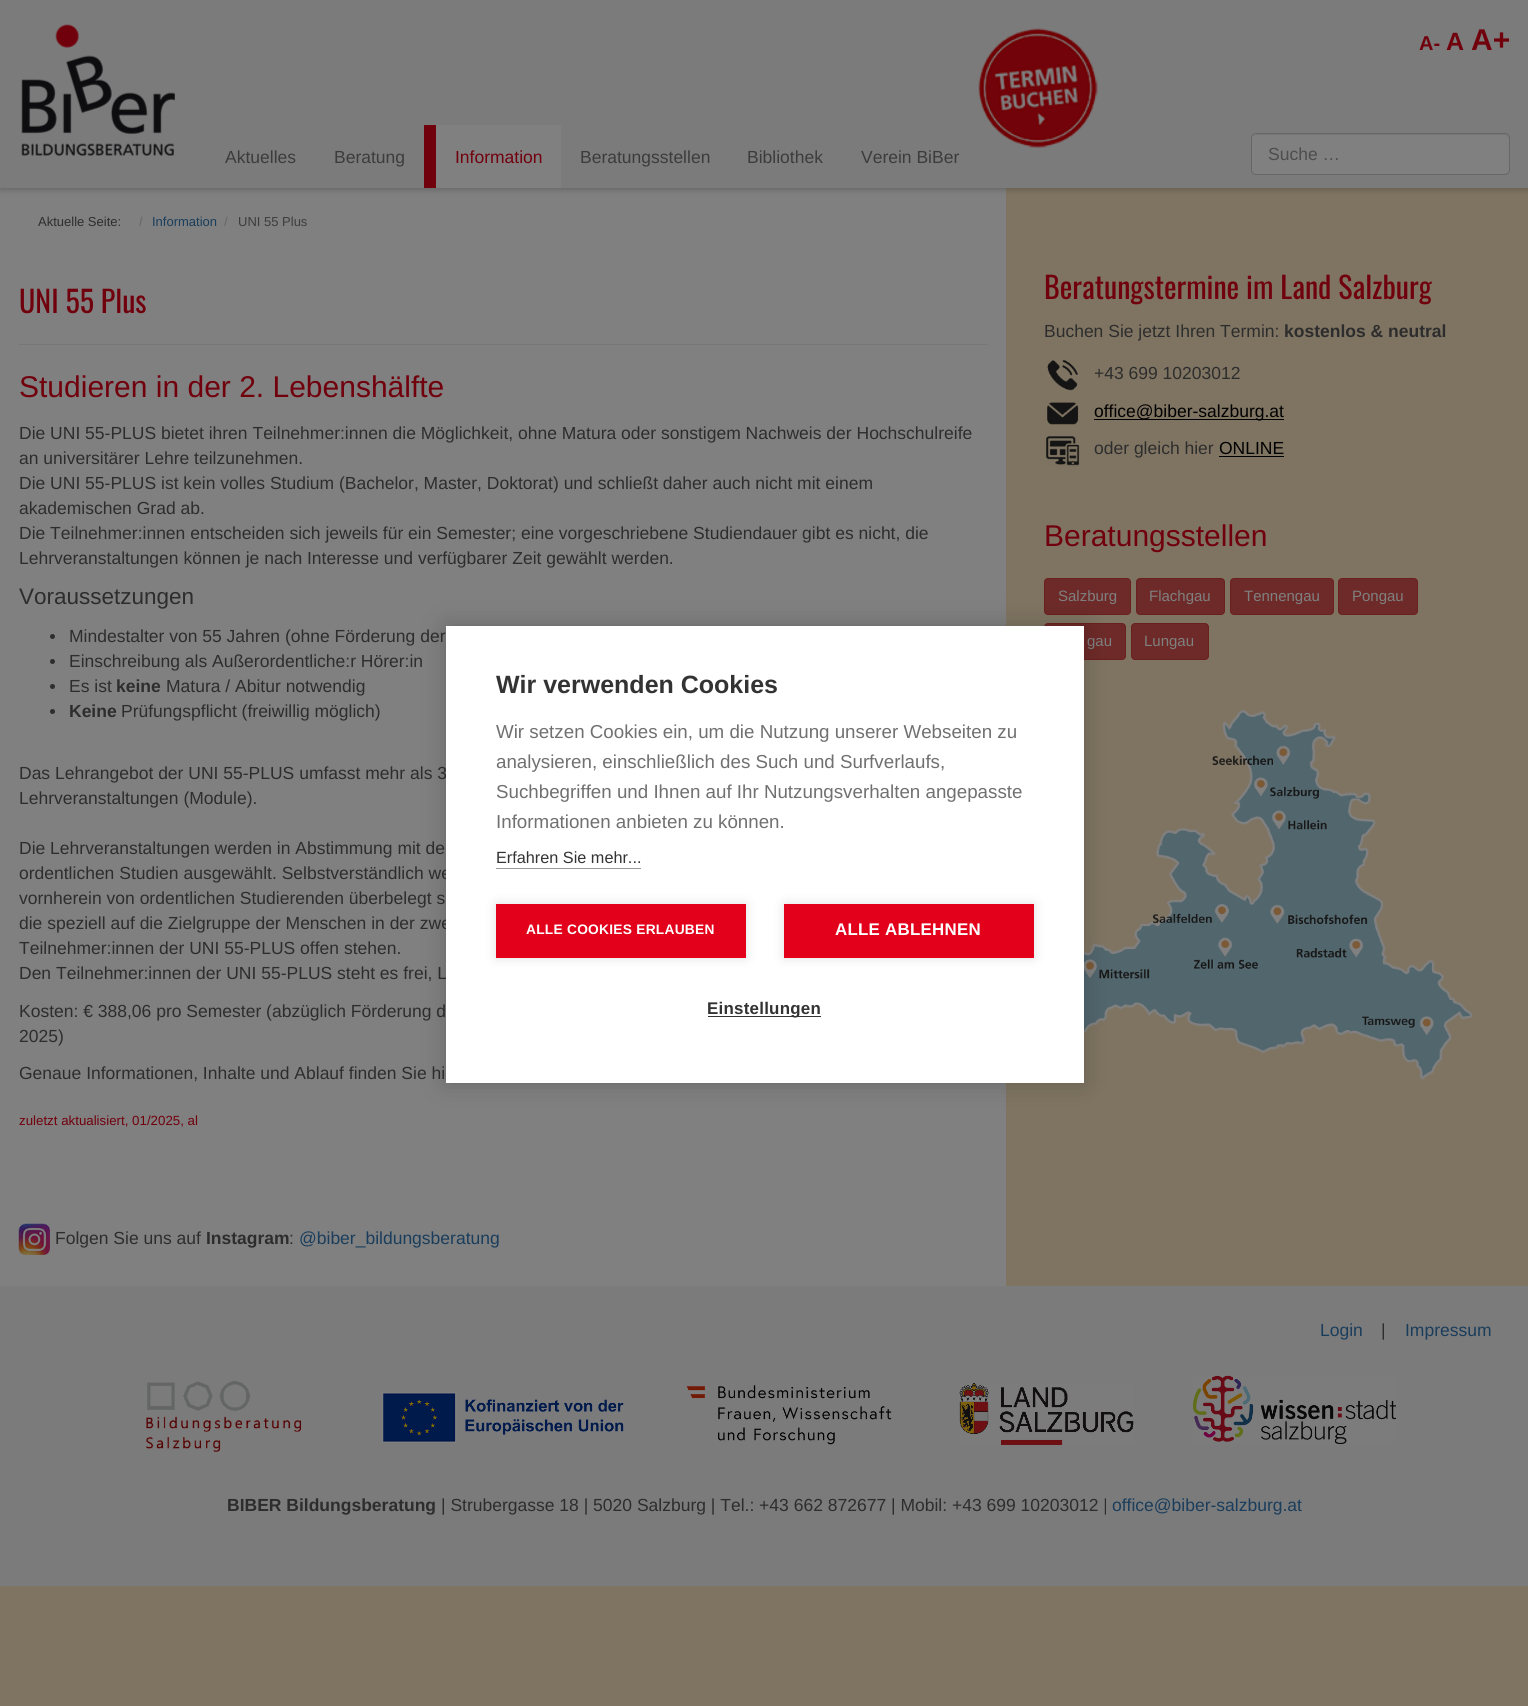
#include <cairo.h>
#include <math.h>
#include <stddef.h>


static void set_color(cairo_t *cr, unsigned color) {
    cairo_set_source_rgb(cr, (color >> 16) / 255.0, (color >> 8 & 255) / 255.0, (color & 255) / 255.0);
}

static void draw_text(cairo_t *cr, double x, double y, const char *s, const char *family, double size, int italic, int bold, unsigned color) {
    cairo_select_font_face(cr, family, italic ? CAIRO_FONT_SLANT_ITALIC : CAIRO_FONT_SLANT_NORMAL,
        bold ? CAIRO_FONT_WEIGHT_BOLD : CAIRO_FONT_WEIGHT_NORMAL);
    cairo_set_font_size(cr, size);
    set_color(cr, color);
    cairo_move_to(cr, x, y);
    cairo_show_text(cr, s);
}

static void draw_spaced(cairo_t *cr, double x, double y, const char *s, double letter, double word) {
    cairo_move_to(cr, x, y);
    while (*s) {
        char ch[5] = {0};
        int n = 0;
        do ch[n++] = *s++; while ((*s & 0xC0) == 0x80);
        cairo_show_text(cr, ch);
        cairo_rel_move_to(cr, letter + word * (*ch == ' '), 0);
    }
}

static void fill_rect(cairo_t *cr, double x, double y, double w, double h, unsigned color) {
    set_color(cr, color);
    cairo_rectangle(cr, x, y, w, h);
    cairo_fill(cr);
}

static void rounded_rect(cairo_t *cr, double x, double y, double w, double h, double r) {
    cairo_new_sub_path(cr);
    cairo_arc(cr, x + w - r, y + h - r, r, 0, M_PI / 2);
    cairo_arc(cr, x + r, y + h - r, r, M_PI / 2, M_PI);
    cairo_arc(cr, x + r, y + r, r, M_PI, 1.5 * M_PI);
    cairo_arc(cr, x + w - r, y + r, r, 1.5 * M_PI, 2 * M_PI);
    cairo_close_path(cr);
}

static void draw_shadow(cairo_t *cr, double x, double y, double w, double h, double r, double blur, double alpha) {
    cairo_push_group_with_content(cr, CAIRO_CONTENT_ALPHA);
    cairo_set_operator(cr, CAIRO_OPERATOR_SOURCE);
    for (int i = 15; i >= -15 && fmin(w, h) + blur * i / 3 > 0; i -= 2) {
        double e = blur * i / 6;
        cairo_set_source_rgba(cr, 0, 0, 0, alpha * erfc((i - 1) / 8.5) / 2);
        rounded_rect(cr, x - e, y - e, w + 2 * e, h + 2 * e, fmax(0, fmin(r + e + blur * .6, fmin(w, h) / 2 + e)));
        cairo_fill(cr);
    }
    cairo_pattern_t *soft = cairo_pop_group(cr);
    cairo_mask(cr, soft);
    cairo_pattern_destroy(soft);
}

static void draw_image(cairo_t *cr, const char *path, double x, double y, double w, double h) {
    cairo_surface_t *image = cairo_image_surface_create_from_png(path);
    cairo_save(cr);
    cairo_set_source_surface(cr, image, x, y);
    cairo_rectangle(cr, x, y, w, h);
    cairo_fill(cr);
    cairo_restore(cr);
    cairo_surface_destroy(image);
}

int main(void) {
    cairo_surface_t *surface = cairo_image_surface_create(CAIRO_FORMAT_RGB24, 1528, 1706);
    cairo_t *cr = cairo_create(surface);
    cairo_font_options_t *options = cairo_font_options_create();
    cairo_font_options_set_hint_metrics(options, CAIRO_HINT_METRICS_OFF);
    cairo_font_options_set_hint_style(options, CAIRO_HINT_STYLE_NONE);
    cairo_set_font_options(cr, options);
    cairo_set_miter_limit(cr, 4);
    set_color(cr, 0x7F7462);
    cairo_paint(cr);
    fill_rect(cr, 0, 188, 1006, 1098, 0x808080);
    set_color(cr, 0x000000);
    draw_shadow(cr, 0, 3, 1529, 187, 0, 3, 0.2);
    fill_rect(cr, 0, 0, 1528, 188, 0x7B7B7B);
    draw_image(cr, "assets/img1.png", 21, 24, 154, 132);
    draw_image(cr, "assets/img2.png", 978, 28, 120, 120);
    draw_text(cr, 1419, 50, "A-", "Liberation Sans", 20, 0, 1, 0x71000D);
    draw_text(cr, 1446, 50, "A", "Liberation Sans", 25, 0, 1, 0x71000D);
    draw_text(cr, 1471, 50, "A+", "Liberation Sans", 30, 0, 1, 0x71000D);
    draw_text(cr, 225, 163, "Aktuelles", "Liberation Sans", 17.5, 0, 0, 0x3C3C3C);
    draw_text(cr, 334, 163, "Beratung", "Liberation Sans", 17.5, 0, 0, 0x3C3C3C);
    fill_rect(cr, 436, 125, 125, 63, 0x808080);
    fill_rect(cr, 424, 125, 12, 63, 0x71000D);
    draw_text(cr, 455, 163, "Information", "Liberation Sans", 17.5, 0, 0, 0x71000D);
    draw_text(cr, 580, 163, "Beratungsstellen", "Liberation Sans", 17.5, 0, 0, 0x3C3C3C);
    draw_text(cr, 747, 163, "Bibliothek", "Liberation Sans", 17.5, 0, 0, 0x3C3C3C);
    draw_text(cr, 861, 163, "Verein BiBer", "Liberation Sans", 17.5, 0, 0, 0x3C3C3C);
    set_color(cr, 0x808080);
    rounded_rect(cr, 1251, 133, 259, 42, 5);
    cairo_fill(cr);
    set_color(cr, 0x767676);
    cairo_new_path(cr);
    cairo_move_to(cr, 1256, 135);
    cairo_line_to(cr, 1506, 135);
    cairo_line_to(cr, 1508, 137);
    cairo_line_to(cr, 1509, 139);
    cairo_line_to(cr, 1509, 138);
    cairo_curve_to(cr, 1509, 136, 1507, 134, 1505, 134);
    cairo_line_to(cr, 1257, 134);
    cairo_curve_to(cr, 1256, 134, 1254, 135, 1254, 136);
    cairo_close_path(cr);
    cairo_fill(cr);
    rounded_rect(cr, 1251.5, 133.5, 258, 41, 4.5);
    set_color(cr, 0x666666);
    cairo_set_line_width(cr, 1);
    cairo_stroke(cr);
    draw_text(cr, 1268, 160, "Suche …", "Liberation Sans", 17.5, 0, 0, 0x4D4D4D);
    draw_text(cr, 38, 226, "Aktuelle Seite:", "Liberation Sans", 13, 0, 0, 0x2D2D2D);
    draw_text(cr, 139, 226, "/", "Liberation Sans", 13, 0, 0, 0x666666);
    draw_text(cr, 152, 226, "Information", "Liberation Sans", 13, 0, 0, 0x1A3D5C);
    draw_text(cr, 224, 226, "/", "Liberation Sans", 13, 0, 0, 0x666666);
    draw_text(cr, 238, 226, "UNI 55 Plus", "Liberation Sans", 13, 0, 0, 0x3C3C3C);
    fill_rect(cr, 19, 344, 969, 1, 0x777777);
    draw_text(cr, 19, 313, "UNI 55 Plus", "Oswald", 30, 0, 0, 0x71000D);
    draw_text(cr, 19, 397, "Studieren in der 2. Lebenshälfte", "Liberation Sans", 30, 0, 0, 0x71000D);
    draw_text(cr, 19, 439, "Die UNI 55-PLUS bietet ihren Teilnehmer:innen die Möglichkeit, ohne Matura oder sonstigem Nachweis der Hochschulreife", "Liberation Sans", 17.5, 0, 0, 0x2D2D2D);
    draw_text(cr, 19, 464, "an universitärer Lehre teilzunehmen.", "Liberation Sans", 17.5, 0, 0, 0x2D2D2D);
    draw_text(cr, 19, 489, "Die UNI 55-PLUS ist kein volles Studium (Bachelor, Master, Doktorat) und schließt daher auch nicht mit einem", "Liberation Sans", 17.5, 0, 0, 0x2D2D2D);
    draw_text(cr, 19, 514, "akademischen Grad ab.", "Liberation Sans", 17.5, 0, 0, 0x2D2D2D);
    draw_text(cr, 19, 539, "Die Teilnehmer:innen entscheiden sich jeweils für ein Semester; eine vorgeschriebene Studiendauer gibt es nicht, die", "Liberation Sans", 17.5, 0, 0, 0x2D2D2D);
    draw_text(cr, 19, 564, "Lehrveranstaltungen können je nach Interesse und verfügbarer Zeit gewählt werden.", "Liberation Sans", 17.5, 0, 0, 0x2D2D2D);
    draw_text(cr, 19, 604, "Voraussetzungen", "Liberation Sans", 22.5, 0, 0, 0x2D2D2D);
    cairo_new_path(cr);
    cairo_arc(cr, 52.5, 636.5, 2.5, 0, 2 * M_PI);
    cairo_fill(cr);
    draw_text(cr, 69, 642, "Mindestalter von 55 Jahren (ohne Förderung der", "Liberation Sans", 17.5, 0, 0, 0x2D2D2D);
    cairo_new_path(cr);
    cairo_arc(cr, 52.5, 661.5, 2.5, 0, 2 * M_PI);
    cairo_fill(cr);
    draw_text(cr, 69, 667, "Einschreibung als Außerordentliche:r Hörer:in", "Liberation Sans", 17.5, 0, 0, 0x2D2D2D);
    cairo_new_path(cr);
    cairo_arc(cr, 52.5, 686.5, 2.5, 0, 2 * M_PI);
    cairo_fill(cr);
    draw_text(cr, 69, 692, "Es ist", "Liberation Sans", 17.5, 0, 0, 0x2D2D2D);
    draw_text(cr, 116, 692, "keine", "Liberation Sans", 17.5, 0, 1, 0x2D2D2D);
    draw_text(cr, 166, 692, "Matura / Abitur notwendig", "Liberation Sans", 17.5, 0, 0, 0x2D2D2D);
    cairo_new_path(cr);
    cairo_arc(cr, 52.5, 711.5, 2.5, 0, 2 * M_PI);
    cairo_fill(cr);
    draw_text(cr, 69, 717, "Keine", "Liberation Sans", 17.5, 0, 1, 0x2D2D2D);
    draw_text(cr, 121, 717, "Prüfungspflicht (freiwillig möglich)", "Liberation Sans", 17.5, 0, 0, 0x2D2D2D);
    draw_text(cr, 19, 779, "Das Lehrangebot der UNI 55-PLUS umfasst mehr als 3", "Liberation Sans", 17.5, 0, 0, 0x2D2D2D);
    draw_text(cr, 19, 804, "Lehrveranstaltungen (Module).", "Liberation Sans", 17.5, 0, 0, 0x2D2D2D);
    draw_text(cr, 19, 854, "Die Lehrveranstaltungen werden in Abstimmung mit de", "Liberation Sans", 17.5, 0, 0, 0x2D2D2D);
    draw_text(cr, 19, 879, "ordentlichen Studien ausgewählt. Selbstverständlich we", "Liberation Sans", 17.5, 0, 0, 0x2D2D2D);
    draw_text(cr, 19, 904, "vornherein von ordentlichen Studierenden überbelegt s", "Liberation Sans", 17.5, 0, 0, 0x2D2D2D);
    draw_text(cr, 19, 929, "die speziell auf die Zielgruppe der Menschen in der zwe", "Liberation Sans", 17.5, 0, 0, 0x2D2D2D);
    draw_text(cr, 19, 954, "Teilnehmer:innen der UNI 55-PLUS offen stehen.", "Liberation Sans", 17.5, 0, 0, 0x2D2D2D);
    draw_text(cr, 19, 979, "Den Teilnehmer:innen der UNI 55-PLUS steht es frei, L", "Liberation Sans", 17.5, 0, 0, 0x2D2D2D);
    draw_text(cr, 19, 1017, "Kosten: € 388,06 pro Semester (abzüglich Förderung d", "Liberation Sans", 17.5, 0, 0, 0x2D2D2D);
    draw_text(cr, 19, 1042, "2025)", "Liberation Sans", 17.5, 0, 0, 0x2D2D2D);
    draw_text(cr, 19, 1079, "Genaue Informationen, Inhalte und Ablauf finden Sie hi", "Liberation Sans", 17.5, 0, 0, 0x2D2D2D);
    draw_text(cr, 19, 1125, "zuletzt aktualisiert, 01/2025, al", "Liberation Sans", 13.3, 0, 0, 0x71000D);
    draw_image(cr, "assets/img3.png", 18, 1223, 32, 32);
    draw_text(cr, 55, 1244, "Folgen Sie uns auf", "Liberation Sans", 17.5, 0, 0, 0x2D2D2D);
    draw_text(cr, 206, 1244, "Instagram", "Liberation Sans", 17.5, 0, 1, 0x2D2D2D);
    draw_text(cr, 289, 1244, ":", "Liberation Sans", 17.5, 0, 0, 0x2D2D2D);
    draw_text(cr, 299, 1244, "@biber_bildungsberatung", "Liberation Sans", 17.5, 0, 0, 0x1A3D5C);
    draw_text(cr, 1044, 299, "Beratungstermine im Land Salzburg", "Oswald", 30, 0, 0, 0x71000D);
    draw_text(cr, 1044, 337, "Buchen Sie jetzt Ihren Termin:", "Liberation Sans", 17.5, 0, 0, 0x2D2D2D);
    draw_text(cr, 1284, 337, "kostenlos & neutral", "Liberation Sans", 17.5, 0, 1, 0x2D2D2D);
    draw_image(cr, "assets/img4.png", 1047, 359, 31, 32);
    draw_text(cr, 1094, 379, "+43 699 10203012", "Liberation Sans", 17.5, 0, 0, 0x2D2D2D);
    draw_image(cr, "assets/img5.png", 1047, 402, 32, 23);
    fill_rect(cr, 1094, 419, 190, 1, 0x000000);
    draw_text(cr, 1094, 417, "office@biber-salzburg.at", "Liberation Sans", 17.5, 0, 0, 0x000000);
    draw_image(cr, "assets/img6.png", 1046, 436, 34, 30);
    draw_text(cr, 1094, 454, "oder gleich hier", "Liberation Sans", 17.5, 0, 0, 0x2D2D2D);
    draw_text(cr, 1219, 454, "ONLINE", "Liberation Sans", 17.5, 0, 0, 0x000000);
    fill_rect(cr, 1219, 456, 65, 1, 0x000000);
    draw_text(cr, 1044, 546, "Beratungsstellen", "Liberation Sans", 30, 0, 0, 0x71000D);
    set_color(cr, 0x6D2A28);
    rounded_rect(cr, 1044.5, 578.5, 86, 36, 3.5);
    cairo_fill_preserve(cr);
    set_color(cr, 0x6A201D);
    cairo_stroke(cr);
    draw_text(cr, 1058, 601, "Salzburg", "Liberation Sans", 15, 0, 0, 0x808080);
    set_color(cr, 0x6D2A28);
    rounded_rect(cr, 1136.5, 578.5, 88, 36, 3.5);
    cairo_fill_preserve(cr);
    set_color(cr, 0x6A201D);
    cairo_stroke(cr);
    draw_text(cr, 1149, 601, "Flachgau", "Liberation Sans", 15, 0, 0, 0x808080);
    set_color(cr, 0x6D2A28);
    rounded_rect(cr, 1230.5, 578.5, 103, 36, 3.5);
    cairo_fill_preserve(cr);
    set_color(cr, 0x6A201D);
    cairo_stroke(cr);
    draw_text(cr, 1244, 601, "Tennengau", "Liberation Sans", 15, 0, 0, 0x808080);
    set_color(cr, 0x6D2A28);
    rounded_rect(cr, 1338.5, 578.5, 79, 36, 3.5);
    cairo_fill_preserve(cr);
    set_color(cr, 0x6A201D);
    cairo_stroke(cr);
    draw_text(cr, 1352, 601, "Pongau", "Liberation Sans", 15, 0, 0, 0x808080);
    set_color(cr, 0x6D2A28);
    rounded_rect(cr, 1044.5, 623.5, 81, 36, 3.5);
    cairo_fill_preserve(cr);
    set_color(cr, 0x6A201D);
    cairo_stroke(cr);
    draw_text(cr, 1087, 646, "gau", "Liberation Sans", 15, 0, 0, 0x808080);
    set_color(cr, 0x6D2A28);
    rounded_rect(cr, 1131.5, 623.5, 77, 36, 3.5);
    cairo_fill_preserve(cr);
    set_color(cr, 0x6A201D);
    cairo_stroke(cr);
    draw_text(cr, 1144, 646, "Lungau", "Liberation Sans", 15, 0, 0, 0x808080);
    draw_image(cr, "assets/img7.png", 1084, 710, 389, 370);
    set_color(cr, 0x000000);
    draw_shadow(cr, 446, 626, 638, 457, 0, 12.5, 0.2);
    fill_rect(cr, 446, 626, 638, 457, 0xFFFFFF);
    draw_text(cr, 496, 693, "Wir verwenden Cookies", "Liberation Sans", 25, 0, 1, 0x333333);
    draw_text(cr, 496, 738, "Wir setzen Cookies ein, um die Nutzung unserer Webseiten zu", "Liberation Sans", 18.75, 0, 0, 0x707070);
    draw_text(cr, 496, 768, "analysieren, einschließlich des Such und Surfverlaufs,", "Liberation Sans", 18.75, 0, 0, 0x707070);
    draw_text(cr, 496, 798, "Suchbegriffen und Ihnen auf Ihr Nutzungsverhalten angepasste", "Liberation Sans", 18.75, 0, 0, 0x707070);
    draw_text(cr, 496, 828, "Informationen anbieten zu können.", "Liberation Sans", 18.75, 0, 0, 0x707070);
    draw_text(cr, 496, 863, "Erfahren Sie mehr...", "Liberation Sans", 16.25, 0, 0, 0x333333);
    fill_rect(cr, 496, 868, 145, 1, 0x999999);
    set_color(cr, 0x000000);
    draw_shadow(cr, 496, 904, 250, 54, 0, 6, 0.12);
    fill_rect(cr, 496, 904, 250, 54, 0xE2001A);
    cairo_select_font_face(cr, "Liberation Sans", CAIRO_FONT_SLANT_NORMAL, CAIRO_FONT_WEIGHT_BOLD);
    cairo_set_font_size(cr, 13.75);
    set_color(cr, 0xFFFFFF);
    draw_spaced(cr, 526, 934, "ALLE COOKIES ERLAUBEN", 0.25, 0);
    set_color(cr, 0x000000);
    draw_shadow(cr, 784, 904, 250, 54, 0, 6, 0.12);
    fill_rect(cr, 784, 904, 250, 54, 0xE2001A);
    cairo_set_font_size(cr, 16.9);
    set_color(cr, 0xFFFFFF);
    draw_spaced(cr, 835, 935, "ALLE ABLEHNEN", 0.25, 0);
    fill_rect(cr, 708, 1016, 113, 1, 0x333333);
    draw_spaced(cr, 707, 1014, "Einstellungen", 0.25, 0);
    fill_rect(cr, 0, 1286, 1528, 300, 0x7B7B7B);
    draw_text(cr, 1320, 1336, "Login", "Liberation Sans", 17.5, 0, 0, 0x1A3D5C);
    draw_text(cr, 1381, 1336, "|", "Liberation Sans", 17.5, 0, 0, 0x2D2D2D);
    draw_text(cr, 1405, 1336, "Impressum", "Liberation Sans", 17.5, 0, 0, 0x1A3D5C);
    draw_image(cr, "assets/img8.png", 146, 1381, 156, 71);
    draw_image(cr, "assets/img9.png", 382, 1392, 242, 51);
    draw_image(cr, "assets/img10.png", 686, 1385, 206, 60);
    draw_image(cr, "assets/img11.png", 959, 1383, 175, 62);
    draw_image(cr, "assets/img12.png", 1193, 1375, 203, 69);
    draw_text(cr, 227, 1511, "BIBER Bildungsberatung", "Liberation Sans", 17.5, 0, 1, 0x2D2D2D);
    draw_text(cr, 441, 1511, "| Strubergasse 18 | 5020 Salzburg | Tel.: +43 662 872677 | Mobil: +43 699 10203012 |", "Liberation Sans", 17.5, 0, 0, 0x2D2D2D);
    draw_text(cr, 1112, 1511, "office@biber-salzburg.at", "Liberation Sans", 17.5, 0, 0, 0x1A3D5C);
    cairo_surface_write_to_png(surface, "output.png");
    cairo_font_options_destroy(options);
    cairo_destroy(cr);
    cairo_surface_destroy(surface);
    return 0;
}
